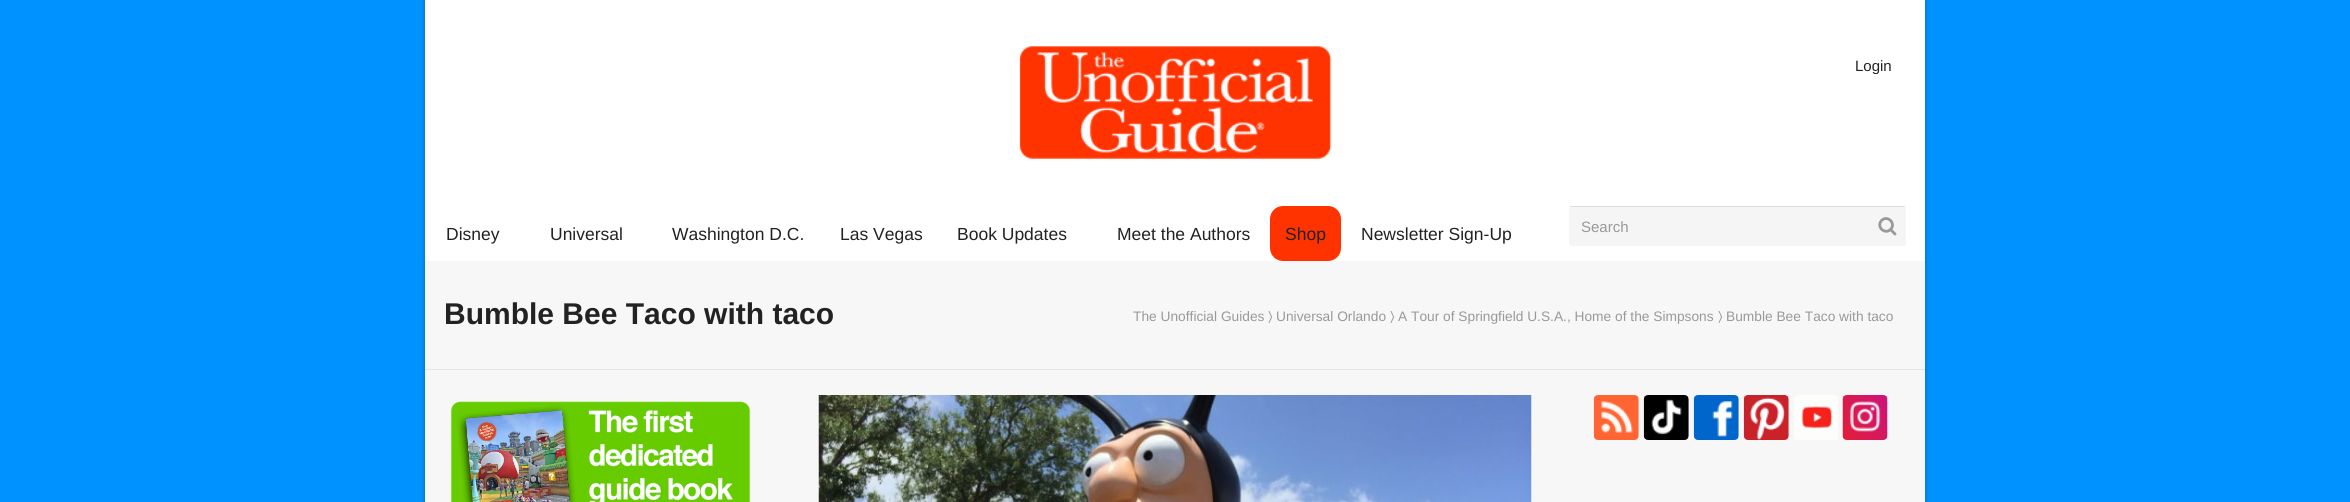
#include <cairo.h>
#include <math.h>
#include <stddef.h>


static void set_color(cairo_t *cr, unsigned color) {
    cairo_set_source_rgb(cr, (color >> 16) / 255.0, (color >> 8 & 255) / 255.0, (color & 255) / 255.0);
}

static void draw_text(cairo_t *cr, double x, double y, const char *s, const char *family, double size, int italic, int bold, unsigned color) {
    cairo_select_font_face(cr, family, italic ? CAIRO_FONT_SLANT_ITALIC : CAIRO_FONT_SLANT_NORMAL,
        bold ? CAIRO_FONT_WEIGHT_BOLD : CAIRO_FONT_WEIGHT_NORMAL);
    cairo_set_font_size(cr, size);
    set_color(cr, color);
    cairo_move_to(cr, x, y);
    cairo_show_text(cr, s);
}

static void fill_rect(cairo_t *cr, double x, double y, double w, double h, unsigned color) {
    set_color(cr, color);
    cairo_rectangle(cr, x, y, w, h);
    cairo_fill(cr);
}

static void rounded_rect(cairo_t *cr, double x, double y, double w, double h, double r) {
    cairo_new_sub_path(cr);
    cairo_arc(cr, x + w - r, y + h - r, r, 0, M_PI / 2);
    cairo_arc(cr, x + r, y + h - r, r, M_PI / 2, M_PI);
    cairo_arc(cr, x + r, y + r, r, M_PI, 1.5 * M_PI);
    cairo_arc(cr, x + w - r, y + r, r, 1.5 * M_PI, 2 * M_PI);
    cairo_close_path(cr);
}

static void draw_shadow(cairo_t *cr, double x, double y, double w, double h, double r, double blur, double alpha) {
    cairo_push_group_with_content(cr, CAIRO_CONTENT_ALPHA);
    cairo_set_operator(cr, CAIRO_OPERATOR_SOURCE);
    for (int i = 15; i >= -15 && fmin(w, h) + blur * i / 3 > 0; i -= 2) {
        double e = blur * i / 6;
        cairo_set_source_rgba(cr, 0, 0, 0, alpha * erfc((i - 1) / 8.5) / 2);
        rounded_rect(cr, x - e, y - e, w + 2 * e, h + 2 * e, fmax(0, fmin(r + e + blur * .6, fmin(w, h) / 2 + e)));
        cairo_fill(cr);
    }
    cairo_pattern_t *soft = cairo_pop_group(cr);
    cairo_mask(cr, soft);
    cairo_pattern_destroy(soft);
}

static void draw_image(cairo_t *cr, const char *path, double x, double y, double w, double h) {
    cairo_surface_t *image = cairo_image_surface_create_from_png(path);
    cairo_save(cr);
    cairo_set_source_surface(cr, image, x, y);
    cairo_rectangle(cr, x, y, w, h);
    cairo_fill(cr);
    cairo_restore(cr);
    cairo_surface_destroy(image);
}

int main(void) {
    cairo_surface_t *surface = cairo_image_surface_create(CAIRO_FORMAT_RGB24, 2350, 502);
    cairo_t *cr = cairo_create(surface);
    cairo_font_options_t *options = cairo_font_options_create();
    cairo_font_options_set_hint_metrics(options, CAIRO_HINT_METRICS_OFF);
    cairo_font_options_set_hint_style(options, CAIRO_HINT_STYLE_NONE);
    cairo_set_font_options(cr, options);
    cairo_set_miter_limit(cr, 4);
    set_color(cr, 0x0093FF);
    cairo_paint(cr);
    set_color(cr, 0x000000);
    draw_shadow(cr, 425, 0, 1500, 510, 0, 2.5, 0.3);
    fill_rect(cr, 425, 0, 1500, 261, 0xFFFFFF);
    draw_image(cr, "assets/img1.png", 1019, 46, 313, 113);
    draw_text(cr, 1855, 71, "Login", "Liberation Sans", 15, 0, 0, 0x222222);
    draw_text(cr, 446, 240, "Disney", "Liberation Sans", 17.5, 0, 0, 0x222222);
    draw_text(cr, 550, 240, "Universal", "Liberation Sans", 17.5, 0, 0, 0x222222);
    draw_text(cr, 672, 240, "Washington D.C.", "Liberation Sans", 17.5, 0, 0, 0x222222);
    draw_text(cr, 840, 240, "Las Vegas", "Liberation Sans", 17.5, 0, 0, 0x222222);
    draw_text(cr, 957, 240, "Book Updates", "Liberation Sans", 17.5, 0, 0, 0x222222);
    draw_text(cr, 1117, 240, "Meet the Authors", "Liberation Sans", 17.5, 0, 0, 0x222222);
    set_color(cr, 0xFF3300);
    rounded_rect(cr, 1270, 206, 71, 55, 13);
    cairo_fill(cr);
    draw_text(cr, 1285, 240, "Shop", "Liberation Sans", 17.5, 0, 0, 0x222222);
    draw_text(cr, 1361, 240, "Newsletter Sign-Up", "Liberation Sans", 17.5, 0, 0, 0x222222);
    set_color(cr, 0xF5F5F5);
    rounded_rect(cr, 1569, 206, 337, 40, 2.5);
    cairo_fill(cr);
    cairo_new_path(cr);
    cairo_move_to(cr, 1895, 234);
    cairo_line_to(cr, 1890.5, 229.5);
    cairo_curve_to(cr, 1896.5, 223.5, 1887.5, 214.5, 1881.5, 220.5);
    cairo_curve_to(cr, 1876, 226.5, 1884.5, 235, 1890.5, 229.5);
    set_color(cr, 0x999999);
    cairo_set_line_width(cr, 2.8);
    cairo_set_line_cap(cr, CAIRO_LINE_CAP_ROUND);
    cairo_stroke(cr);
    cairo_set_source_rgba(cr, 0, 0, 0, 0.1);
    cairo_rectangle(cr, 1570, 206, 335, 1);
    cairo_fill(cr);
    draw_text(cr, 1581, 232, "Search", "Liberation Sans", 15, 0, 0, 0x999999);
    fill_rect(cr, 425, 261, 1500, 241, 0xF7F7F7);
    fill_rect(cr, 425, 369, 1500, 1, 0xE4E4E4);
    draw_text(cr, 444, 324, "Bumble Bee Taco with taco", "Liberation Sans", 30, 0, 1, 0x222222);
    draw_text(cr, 1133, 321, "The Unofficial Guides", "Liberation Sans", 13.75, 0, 0, 0x999999);
    draw_text(cr, 1268, 321, "〉", "FreeSans", 13.75, 0, 0, 0x999999);
    draw_text(cr, 1276, 321, "Universal Orlando", "Liberation Sans", 13.75, 0, 0, 0x999999);
    draw_text(cr, 1390, 321, "〉", "FreeSans", 13.75, 0, 0, 0x999999);
    draw_text(cr, 1398, 321, "A Tour of Springfield U.S.A., Home of the Simpsons", "Liberation Sans", 13.75, 0, 0, 0x999999);
    draw_text(cr, 1718, 321, "〉", "FreeSans", 13.75, 0, 0, 0x999999);
    draw_text(cr, 1726, 321, "Bumble Bee Taco with taco", "Liberation Sans", 13.75, 0, 0, 0x999999);
    draw_image(cr, "assets/img2.png", 450, 401, 300, 101);
    draw_image(cr, "assets/img3.png", 818, 395, 714, 107);
    draw_image(cr, "assets/img4.png", 1593, 395, 46, 45);
    draw_image(cr, "assets/img5.png", 1643, 395, 46, 45);
    draw_image(cr, "assets/img6.png", 1693, 395, 46, 45);
    draw_image(cr, "assets/img7.png", 1743, 395, 46, 45);
    draw_image(cr, "assets/img8.png", 1794, 395, 44, 45);
    draw_image(cr, "assets/img9.png", 1842, 395, 46, 45);
    cairo_surface_write_to_png(surface, "output.png");
    cairo_font_options_destroy(options);
    cairo_destroy(cr);
    cairo_surface_destroy(surface);
    return 0;
}
